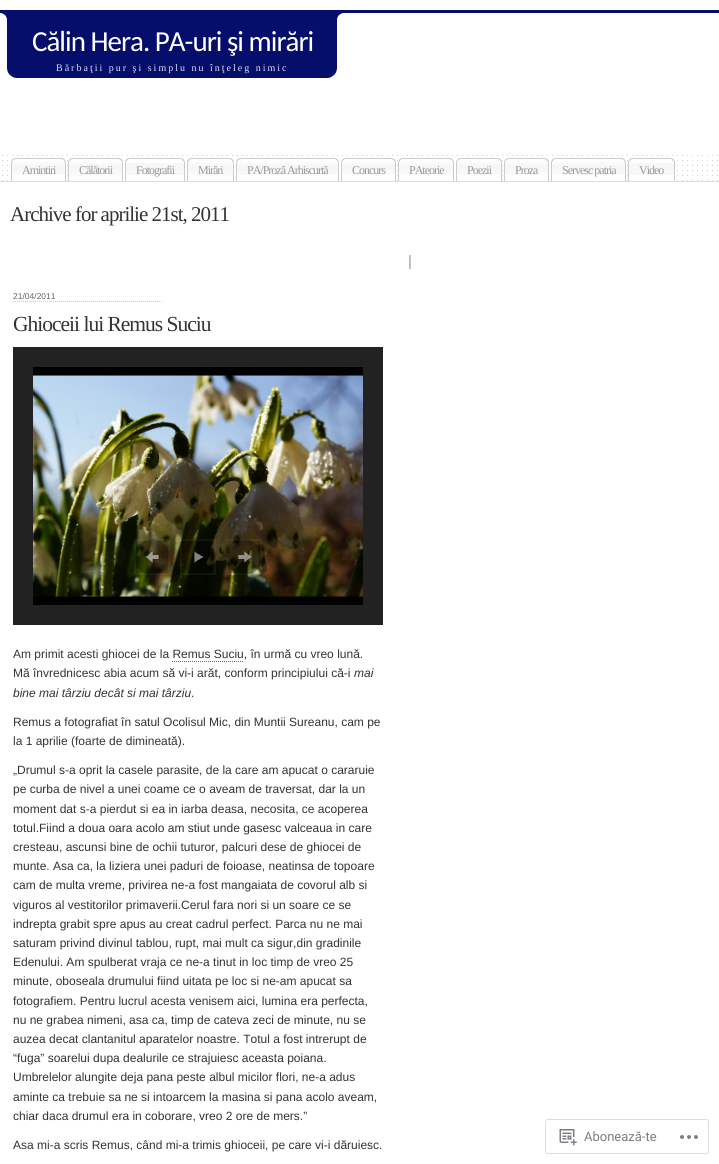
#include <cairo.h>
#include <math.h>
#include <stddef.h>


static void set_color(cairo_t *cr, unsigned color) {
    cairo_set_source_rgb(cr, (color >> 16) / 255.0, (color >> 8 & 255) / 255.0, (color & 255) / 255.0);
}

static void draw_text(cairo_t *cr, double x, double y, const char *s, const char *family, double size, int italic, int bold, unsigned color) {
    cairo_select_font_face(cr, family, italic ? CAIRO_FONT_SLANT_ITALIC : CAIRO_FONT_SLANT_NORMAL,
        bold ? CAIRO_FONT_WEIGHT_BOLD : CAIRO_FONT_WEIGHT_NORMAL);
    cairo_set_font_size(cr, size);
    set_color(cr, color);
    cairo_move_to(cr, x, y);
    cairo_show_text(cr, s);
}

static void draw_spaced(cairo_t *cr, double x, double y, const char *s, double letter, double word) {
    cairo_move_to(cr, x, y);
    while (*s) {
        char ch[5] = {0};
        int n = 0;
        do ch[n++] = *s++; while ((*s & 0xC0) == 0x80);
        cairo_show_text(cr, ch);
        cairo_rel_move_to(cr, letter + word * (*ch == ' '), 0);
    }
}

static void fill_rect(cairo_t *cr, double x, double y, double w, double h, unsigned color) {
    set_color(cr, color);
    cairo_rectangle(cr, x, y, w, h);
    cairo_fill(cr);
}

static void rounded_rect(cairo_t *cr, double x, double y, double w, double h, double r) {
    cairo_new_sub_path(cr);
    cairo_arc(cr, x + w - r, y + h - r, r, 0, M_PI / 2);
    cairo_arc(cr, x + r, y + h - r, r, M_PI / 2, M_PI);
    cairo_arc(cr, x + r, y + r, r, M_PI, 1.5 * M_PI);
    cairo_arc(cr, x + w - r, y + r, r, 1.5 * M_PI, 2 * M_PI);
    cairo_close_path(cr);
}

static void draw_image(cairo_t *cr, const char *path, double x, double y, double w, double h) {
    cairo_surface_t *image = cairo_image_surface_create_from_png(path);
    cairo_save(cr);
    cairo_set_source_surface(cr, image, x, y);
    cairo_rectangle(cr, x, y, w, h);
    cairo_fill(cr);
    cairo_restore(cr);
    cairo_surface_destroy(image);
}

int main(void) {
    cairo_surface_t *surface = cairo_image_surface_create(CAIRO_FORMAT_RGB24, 719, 1164);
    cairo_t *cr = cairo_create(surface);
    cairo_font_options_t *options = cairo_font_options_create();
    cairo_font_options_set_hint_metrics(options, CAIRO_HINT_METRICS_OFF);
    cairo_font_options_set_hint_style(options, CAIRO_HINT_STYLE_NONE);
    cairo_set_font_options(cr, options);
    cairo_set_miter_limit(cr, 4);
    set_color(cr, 0xFFFFFF);
    cairo_paint(cr);
    fill_rect(cr, 0, 10, 719, 3, 0x050E6B);
    fill_rect(cr, 7, 13, 330, 65, 0x050E6B);
    fill_rect(cr, 0, 13, 7, 7, 0x050E6B);
    draw_image(cr, "assets/img1.png", 0, 13, 7, 7);
    fill_rect(cr, 337, 13, 7, 7, 0x050E6B);
    draw_image(cr, "assets/img2.png", 337, 13, 7, 7);
    cairo_select_font_face(cr, "Carlito", CAIRO_FONT_SLANT_NORMAL, CAIRO_FONT_WEIGHT_NORMAL);
    cairo_set_font_size(cr, 29);
    set_color(cr, 0xFFFFFF);
    draw_spaced(cr, 32, 51, "Călin Hera. PA-uri şi mirări", -1, 0);
    draw_image(cr, "assets/img3.png", 7, 68, 9, 10);
    cairo_select_font_face(cr, "Liberation Serif", CAIRO_FONT_SLANT_NORMAL, CAIRO_FONT_WEIGHT_NORMAL);
    cairo_set_font_size(cr, 10);
    set_color(cr, 0xDBDFF1);
    draw_spaced(cr, 56, 71, "Bărbaţii pur şi simplu nu înţeleg nimic", 2, 0);
    draw_image(cr, "assets/img4.png", 328, 68, 9, 10);
    draw_image(cr, "assets/img5.png", 2, 155, 716, 26);
    fill_rect(cr, 0, 181, 719, 1, 0xDDDDDD);
    set_color(cr, 0xFFFFFF);
    cairo_new_path(cr);
    cairo_move_to(cr, 16, 159);
    cairo_line_to(cr, 61, 159);
    cairo_curve_to(cr, 63, 159, 65, 161, 65, 163);
    cairo_line_to(cr, 65, 181);
    cairo_line_to(cr, 12, 181);
    cairo_line_to(cr, 12, 163);
    cairo_curve_to(cr, 12, 161, 14, 159, 16, 159);
    cairo_close_path(cr);
    cairo_fill(cr);
    draw_image(cr, "assets/img6.png", 11, 160, 55, 15);
    set_color(cr, 0xCCCCCC);
    cairo_set_fill_rule(cr, CAIRO_FILL_RULE_EVEN_ODD);
    cairo_new_path(cr);
    cairo_move_to(cr, 16, 158);
    cairo_line_to(cr, 61, 158);
    cairo_curve_to(cr, 64, 158, 66, 160, 66, 163);
    cairo_line_to(cr, 66, 181);
    cairo_line_to(cr, 11, 181);
    cairo_line_to(cr, 11, 163);
    cairo_curve_to(cr, 11, 160, 13, 158, 16, 158);
    cairo_close_path(cr);
    cairo_move_to(cr, 16, 159);
    cairo_line_to(cr, 61, 159);
    cairo_curve_to(cr, 63, 159, 65, 161, 65, 163);
    cairo_line_to(cr, 65, 181);
    cairo_line_to(cr, 12, 181);
    cairo_line_to(cr, 12, 163);
    cairo_curve_to(cr, 12, 161, 14, 159, 16, 159);
    cairo_close_path(cr);
    cairo_fill(cr);
    cairo_set_font_size(cr, 12);
    set_color(cr, 0x999999);
    draw_spaced(cr, 22, 174, "Amintiri", -1, 0);
    set_color(cr, 0xFFFFFF);
    cairo_new_path(cr);
    cairo_move_to(cr, 73, 159);
    cairo_line_to(cr, 118, 159);
    cairo_curve_to(cr, 120, 159, 122, 161, 122, 163);
    cairo_line_to(cr, 122, 181);
    cairo_line_to(cr, 69, 181);
    cairo_line_to(cr, 69, 163);
    cairo_curve_to(cr, 69, 161, 71, 159, 73, 159);
    cairo_close_path(cr);
    cairo_fill(cr);
    draw_image(cr, "assets/img7.png", 68, 160, 55, 21);
    set_color(cr, 0xCCCCCC);
    cairo_new_path(cr);
    cairo_move_to(cr, 73, 158);
    cairo_line_to(cr, 118, 158);
    cairo_curve_to(cr, 121, 158, 123, 160, 123, 163);
    cairo_line_to(cr, 123, 181);
    cairo_line_to(cr, 68, 181);
    cairo_line_to(cr, 68, 163);
    cairo_curve_to(cr, 68, 160, 70, 158, 73, 158);
    cairo_close_path(cr);
    cairo_move_to(cr, 73, 159);
    cairo_line_to(cr, 118, 159);
    cairo_curve_to(cr, 120, 159, 122, 161, 122, 163);
    cairo_line_to(cr, 122, 181);
    cairo_line_to(cr, 69, 181);
    cairo_line_to(cr, 69, 163);
    cairo_curve_to(cr, 69, 161, 71, 159, 73, 159);
    cairo_close_path(cr);
    cairo_fill(cr);
    set_color(cr, 0x999999);
    draw_spaced(cr, 79, 174, "Călătorii", -1, 0);
    set_color(cr, 0xFFFFFF);
    cairo_new_path(cr);
    cairo_move_to(cr, 130, 159);
    cairo_line_to(cr, 180, 159);
    cairo_curve_to(cr, 182, 159, 184, 161, 184, 163);
    cairo_line_to(cr, 184, 181);
    cairo_line_to(cr, 126, 181);
    cairo_line_to(cr, 126, 163);
    cairo_curve_to(cr, 126, 161, 128, 159, 130, 159);
    cairo_close_path(cr);
    cairo_fill(cr);
    fill_rect(cr, 126, 163, 58, 12, 0xF7F7F7);
    set_color(cr, 0xCCCCCC);
    cairo_new_path(cr);
    cairo_move_to(cr, 130, 158);
    cairo_line_to(cr, 180, 158);
    cairo_curve_to(cr, 183, 158, 185, 160, 185, 163);
    cairo_line_to(cr, 185, 181);
    cairo_line_to(cr, 125, 181);
    cairo_line_to(cr, 125, 163);
    cairo_curve_to(cr, 125, 160, 127, 158, 130, 158);
    cairo_close_path(cr);
    cairo_move_to(cr, 130, 159);
    cairo_line_to(cr, 180, 159);
    cairo_curve_to(cr, 182, 159, 184, 161, 184, 163);
    cairo_line_to(cr, 184, 181);
    cairo_line_to(cr, 126, 181);
    cairo_line_to(cr, 126, 163);
    cairo_curve_to(cr, 126, 161, 128, 159, 130, 159);
    cairo_close_path(cr);
    cairo_fill(cr);
    set_color(cr, 0x999999);
    draw_spaced(cr, 136, 174, "Fotografii", -1, 0);
    set_color(cr, 0xFFFFFF);
    cairo_new_path(cr);
    cairo_move_to(cr, 192, 159);
    cairo_line_to(cr, 229, 159);
    cairo_curve_to(cr, 231, 159, 233, 161, 233, 163);
    cairo_line_to(cr, 233, 181);
    cairo_line_to(cr, 188, 181);
    cairo_line_to(cr, 188, 163);
    cairo_curve_to(cr, 188, 161, 190, 159, 192, 159);
    cairo_close_path(cr);
    cairo_fill(cr);
    draw_image(cr, "assets/img8.png", 187, 160, 47, 21);
    set_color(cr, 0xCCCCCC);
    cairo_new_path(cr);
    cairo_move_to(cr, 192, 158);
    cairo_line_to(cr, 229, 158);
    cairo_curve_to(cr, 232, 158, 234, 160, 234, 163);
    cairo_line_to(cr, 234, 181);
    cairo_line_to(cr, 187, 181);
    cairo_line_to(cr, 187, 163);
    cairo_curve_to(cr, 187, 160, 189, 158, 192, 158);
    cairo_close_path(cr);
    cairo_move_to(cr, 192, 159);
    cairo_line_to(cr, 229, 159);
    cairo_curve_to(cr, 231, 159, 233, 161, 233, 163);
    cairo_line_to(cr, 233, 181);
    cairo_line_to(cr, 188, 181);
    cairo_line_to(cr, 188, 163);
    cairo_curve_to(cr, 188, 161, 190, 159, 192, 159);
    cairo_close_path(cr);
    cairo_fill(cr);
    set_color(cr, 0x999999);
    draw_spaced(cr, 198, 174, "Mirări", -1, 0);
    set_color(cr, 0xFFFFFF);
    cairo_new_path(cr);
    cairo_move_to(cr, 241, 159);
    cairo_line_to(cr, 334, 159);
    cairo_curve_to(cr, 336, 159, 338, 161, 338, 163);
    cairo_line_to(cr, 338, 181);
    cairo_line_to(cr, 237, 181);
    cairo_line_to(cr, 237, 163);
    cairo_curve_to(cr, 237, 161, 239, 159, 241, 159);
    cairo_close_path(cr);
    cairo_fill(cr);
    draw_image(cr, "assets/img9.png", 236, 160, 103, 15);
    set_color(cr, 0xCCCCCC);
    cairo_new_path(cr);
    cairo_move_to(cr, 241, 158);
    cairo_line_to(cr, 334, 158);
    cairo_curve_to(cr, 337, 158, 339, 160, 339, 163);
    cairo_line_to(cr, 339, 181);
    cairo_line_to(cr, 236, 181);
    cairo_line_to(cr, 236, 163);
    cairo_curve_to(cr, 236, 160, 238, 158, 241, 158);
    cairo_close_path(cr);
    cairo_move_to(cr, 241, 159);
    cairo_line_to(cr, 334, 159);
    cairo_curve_to(cr, 336, 159, 338, 161, 338, 163);
    cairo_line_to(cr, 338, 181);
    cairo_line_to(cr, 237, 181);
    cairo_line_to(cr, 237, 163);
    cairo_curve_to(cr, 237, 161, 239, 159, 241, 159);
    cairo_close_path(cr);
    cairo_fill(cr);
    set_color(cr, 0x999999);
    draw_spaced(cr, 247, 174, "PA/Proză Arhiscurtă", -1, 0);
    set_color(cr, 0xFFFFFF);
    cairo_new_path(cr);
    cairo_move_to(cr, 346, 159);
    cairo_line_to(cr, 391, 159);
    cairo_curve_to(cr, 393, 159, 395, 161, 395, 163);
    cairo_line_to(cr, 395, 181);
    cairo_line_to(cr, 342, 181);
    cairo_line_to(cr, 342, 163);
    cairo_curve_to(cr, 342, 161, 344, 159, 346, 159);
    cairo_close_path(cr);
    cairo_fill(cr);
    draw_image(cr, "assets/img6.png", 341, 160, 55, 15);
    set_color(cr, 0xCCCCCC);
    cairo_new_path(cr);
    cairo_move_to(cr, 346, 158);
    cairo_line_to(cr, 391, 158);
    cairo_curve_to(cr, 394, 158, 396, 160, 396, 163);
    cairo_line_to(cr, 396, 181);
    cairo_line_to(cr, 341, 181);
    cairo_line_to(cr, 341, 163);
    cairo_curve_to(cr, 341, 160, 343, 158, 346, 158);
    cairo_close_path(cr);
    cairo_move_to(cr, 346, 159);
    cairo_line_to(cr, 391, 159);
    cairo_curve_to(cr, 393, 159, 395, 161, 395, 163);
    cairo_line_to(cr, 395, 181);
    cairo_line_to(cr, 342, 181);
    cairo_line_to(cr, 342, 163);
    cairo_curve_to(cr, 342, 161, 344, 159, 346, 159);
    cairo_close_path(cr);
    cairo_fill(cr);
    set_color(cr, 0x999999);
    draw_spaced(cr, 352, 174, "Concurs", -1, 0);
    set_color(cr, 0xFFFFFF);
    cairo_new_path(cr);
    cairo_move_to(cr, 403, 159);
    cairo_line_to(cr, 449, 159);
    cairo_curve_to(cr, 451, 159, 453, 161, 453, 163);
    cairo_line_to(cr, 453, 181);
    cairo_line_to(cr, 399, 181);
    cairo_line_to(cr, 399, 163);
    cairo_curve_to(cr, 399, 161, 401, 159, 403, 159);
    cairo_close_path(cr);
    cairo_fill(cr);
    draw_image(cr, "assets/img10.png", 398, 160, 56, 15);
    set_color(cr, 0xCCCCCC);
    cairo_new_path(cr);
    cairo_move_to(cr, 403, 158);
    cairo_line_to(cr, 449, 158);
    cairo_curve_to(cr, 452, 158, 454, 160, 454, 163);
    cairo_line_to(cr, 454, 181);
    cairo_line_to(cr, 398, 181);
    cairo_line_to(cr, 398, 163);
    cairo_curve_to(cr, 398, 160, 400, 158, 403, 158);
    cairo_close_path(cr);
    cairo_move_to(cr, 403, 159);
    cairo_line_to(cr, 449, 159);
    cairo_curve_to(cr, 451, 159, 453, 161, 453, 163);
    cairo_line_to(cr, 453, 181);
    cairo_line_to(cr, 399, 181);
    cairo_line_to(cr, 399, 163);
    cairo_curve_to(cr, 399, 161, 401, 159, 403, 159);
    cairo_close_path(cr);
    cairo_fill(cr);
    set_color(cr, 0x999999);
    draw_spaced(cr, 409, 174, "PAteorie", -1, 0);
    set_color(cr, 0xFFFFFF);
    cairo_new_path(cr);
    cairo_move_to(cr, 461, 159);
    cairo_line_to(cr, 497, 159);
    cairo_curve_to(cr, 499, 159, 501, 161, 501, 163);
    cairo_line_to(cr, 501, 181);
    cairo_line_to(cr, 457, 181);
    cairo_line_to(cr, 457, 163);
    cairo_curve_to(cr, 457, 161, 459, 159, 461, 159);
    cairo_close_path(cr);
    cairo_fill(cr);
    draw_image(cr, "assets/img11.png", 456, 160, 46, 15);
    set_color(cr, 0xCCCCCC);
    cairo_new_path(cr);
    cairo_move_to(cr, 461, 158);
    cairo_line_to(cr, 497, 158);
    cairo_curve_to(cr, 500, 158, 502, 160, 502, 163);
    cairo_line_to(cr, 502, 181);
    cairo_line_to(cr, 456, 181);
    cairo_line_to(cr, 456, 163);
    cairo_curve_to(cr, 456, 160, 458, 158, 461, 158);
    cairo_close_path(cr);
    cairo_move_to(cr, 461, 159);
    cairo_line_to(cr, 497, 159);
    cairo_curve_to(cr, 499, 159, 501, 161, 501, 163);
    cairo_line_to(cr, 501, 181);
    cairo_line_to(cr, 457, 181);
    cairo_line_to(cr, 457, 163);
    cairo_curve_to(cr, 457, 161, 459, 159, 461, 159);
    cairo_close_path(cr);
    cairo_fill(cr);
    set_color(cr, 0x999999);
    draw_spaced(cr, 467, 174, "Poezii", -1, 0);
    set_color(cr, 0xFFFFFF);
    cairo_new_path(cr);
    cairo_move_to(cr, 509, 159);
    cairo_line_to(cr, 544, 159);
    cairo_curve_to(cr, 546, 159, 548, 161, 548, 163);
    cairo_line_to(cr, 548, 181);
    cairo_line_to(cr, 505, 181);
    cairo_line_to(cr, 505, 163);
    cairo_curve_to(cr, 505, 161, 507, 159, 509, 159);
    cairo_close_path(cr);
    cairo_fill(cr);
    draw_image(cr, "assets/img12.png", 504, 160, 45, 15);
    set_color(cr, 0xCCCCCC);
    cairo_new_path(cr);
    cairo_move_to(cr, 509, 158);
    cairo_line_to(cr, 544, 158);
    cairo_curve_to(cr, 547, 158, 549, 160, 549, 163);
    cairo_line_to(cr, 549, 181);
    cairo_line_to(cr, 504, 181);
    cairo_line_to(cr, 504, 163);
    cairo_curve_to(cr, 504, 160, 506, 158, 509, 158);
    cairo_close_path(cr);
    cairo_move_to(cr, 509, 159);
    cairo_line_to(cr, 544, 159);
    cairo_curve_to(cr, 546, 159, 548, 161, 548, 163);
    cairo_line_to(cr, 548, 181);
    cairo_line_to(cr, 505, 181);
    cairo_line_to(cr, 505, 163);
    cairo_curve_to(cr, 505, 161, 507, 159, 509, 159);
    cairo_close_path(cr);
    cairo_fill(cr);
    set_color(cr, 0x999999);
    draw_spaced(cr, 515, 174, "Proza", -1, 0);
    set_color(cr, 0xFFFFFF);
    cairo_new_path(cr);
    cairo_move_to(cr, 556, 159);
    cairo_line_to(cr, 621, 159);
    cairo_curve_to(cr, 623, 159, 625, 161, 625, 163);
    cairo_line_to(cr, 625, 181);
    cairo_line_to(cr, 552, 181);
    cairo_line_to(cr, 552, 163);
    cairo_curve_to(cr, 552, 161, 554, 159, 556, 159);
    cairo_close_path(cr);
    cairo_fill(cr);
    draw_image(cr, "assets/img13.png", 551, 160, 75, 15);
    set_color(cr, 0xCCCCCC);
    cairo_new_path(cr);
    cairo_move_to(cr, 556, 158);
    cairo_line_to(cr, 621, 158);
    cairo_curve_to(cr, 624, 158, 626, 160, 626, 163);
    cairo_line_to(cr, 626, 181);
    cairo_line_to(cr, 551, 181);
    cairo_line_to(cr, 551, 163);
    cairo_curve_to(cr, 551, 160, 553, 158, 556, 158);
    cairo_close_path(cr);
    cairo_move_to(cr, 556, 159);
    cairo_line_to(cr, 621, 159);
    cairo_curve_to(cr, 623, 159, 625, 161, 625, 163);
    cairo_line_to(cr, 625, 181);
    cairo_line_to(cr, 552, 181);
    cairo_line_to(cr, 552, 163);
    cairo_curve_to(cr, 552, 161, 554, 159, 556, 159);
    cairo_close_path(cr);
    cairo_fill(cr);
    set_color(cr, 0x999999);
    draw_spaced(cr, 562, 174, "Servesc patria", -1, 0);
    set_color(cr, 0xFFFFFF);
    cairo_new_path(cr);
    cairo_move_to(cr, 633, 159);
    cairo_line_to(cr, 670, 159);
    cairo_curve_to(cr, 672, 159, 674, 161, 674, 163);
    cairo_line_to(cr, 674, 181);
    cairo_line_to(cr, 629, 181);
    cairo_line_to(cr, 629, 163);
    cairo_curve_to(cr, 629, 161, 631, 159, 633, 159);
    cairo_close_path(cr);
    cairo_fill(cr);
    fill_rect(cr, 629, 163, 45, 12, 0xF7F7F7);
    set_color(cr, 0xCCCCCC);
    cairo_new_path(cr);
    cairo_move_to(cr, 633, 158);
    cairo_line_to(cr, 670, 158);
    cairo_curve_to(cr, 673, 158, 675, 160, 675, 163);
    cairo_line_to(cr, 675, 181);
    cairo_line_to(cr, 628, 181);
    cairo_line_to(cr, 628, 163);
    cairo_curve_to(cr, 628, 160, 630, 158, 633, 158);
    cairo_close_path(cr);
    cairo_move_to(cr, 633, 159);
    cairo_line_to(cr, 670, 159);
    cairo_curve_to(cr, 672, 159, 674, 161, 674, 163);
    cairo_line_to(cr, 674, 181);
    cairo_line_to(cr, 629, 181);
    cairo_line_to(cr, 629, 163);
    cairo_curve_to(cr, 629, 161, 631, 159, 633, 159);
    cairo_close_path(cr);
    cairo_fill(cr);
    set_color(cr, 0x999999);
    draw_spaced(cr, 639, 174, "Video", -1, 0);
    cairo_set_font_size(cr, 21);
    set_color(cr, 0x333333);
    draw_spaced(cr, 10, 221, "Archive for aprilie 21st, 2011", -1, 0);
    draw_text(cr, 408, 266, "|", "Liberation Sans", 15, 0, 0, 0x999999);
    cairo_new_path(cr);
    cairo_move_to(cr, 13, 301.5);
    cairo_line_to(cr, 163, 301.5);
    set_color(cr, 0xCCCCCC);
    cairo_set_line_width(cr, 1);
    cairo_set_dash(cr, (double[]){1, 1}, 2, 0);
    cairo_stroke(cr);
    draw_text(cr, 13, 299, "21/04/2011", "Liberation Sans", 8.5, 0, 0, 0x666666);
    cairo_select_font_face(cr, "Liberation Serif", CAIRO_FONT_SLANT_NORMAL, CAIRO_FONT_WEIGHT_NORMAL);
    cairo_set_font_size(cr, 21.5);
    set_color(cr, 0x333333);
    draw_spaced(cr, 13, 331, "Ghioceii lui Remus Suciu", -1, 0);
    cairo_rectangle(cr, 23, 357, 350, 258);
    set_color(cr, 0x222222);
    cairo_set_line_width(cr, 20);
    cairo_set_dash(cr, NULL, 0, 0);
    cairo_stroke(cr);
    fill_rect(cr, 33, 367, 330, 238, 0x000000);
    draw_image(cr, "assets/img14.png", 33, 375, 330, 222);
    cairo_set_source_rgba(cr, 0, 0, 0, 0.3);
    cairo_arc(cr, 152, 557, 18, 0, 2 * M_PI);
    cairo_fill(cr);
    draw_image(cr, "assets/img15.png", 145, 551, 15, 12);
    cairo_rectangle(cr, 135, 540, 34, 34);
    cairo_set_source_rgba(cr, 1, 1, 1, 0.05);
    cairo_set_line_width(cr, 2);
    cairo_stroke(cr);
    cairo_set_source_rgba(cr, 0, 0, 0, 0.3);
    cairo_arc(cr, 198, 557, 18, 0, 2 * M_PI);
    cairo_fill(cr);
    draw_image(cr, "assets/img16.png", 194, 551, 10, 12);
    cairo_rectangle(cr, 181, 540, 34, 34);
    cairo_set_source_rgba(cr, 1, 1, 1, 0.05);
    cairo_stroke(cr);
    cairo_set_source_rgba(cr, 0, 0, 0, 0.3);
    cairo_arc(cr, 244, 557, 18, 0, 2 * M_PI);
    cairo_fill(cr);
    draw_image(cr, "assets/img17.png", 238, 551, 15, 12);
    cairo_rectangle(cr, 227, 540, 34, 34);
    cairo_set_source_rgba(cr, 1, 1, 1, 0.05);
    cairo_stroke(cr);
    draw_text(cr, 13, 658, "Am primit acesti ghiocei de la Remus Suciu, în urmă cu vreo lună.", "Liberation Sans", 12, 0, 0, 0x333333);
    cairo_new_path(cr);
    cairo_move_to(cr, 172, 661.5);
    cairo_line_to(cr, 244, 661.5);
    set_color(cr, 0x666666);
    cairo_set_line_width(cr, 1);
    cairo_set_dash(cr, (double[]){1, 1}, 2, 0);
    cairo_stroke(cr);
    draw_text(cr, 13, 677, "Mă învrednicesc abia acum să vi-i arăt, conform principiului că-i", "Liberation Sans", 12, 0, 0, 0x333333);
    draw_text(cr, 354, 677, "mai", "Liberation Sans", 12, 1, 0, 0x333333);
    draw_text(cr, 13, 697, "bine mai târziu decât si mai târziu", "Liberation Sans", 12, 1, 0, 0x333333);
    draw_text(cr, 191, 697, ".", "Liberation Sans", 12, 0, 0, 0x333333);
    draw_text(cr, 13, 726, "Remus a fotografiat în satul Ocolisul Mic, din Muntii Sureanu, cam pe", "Liberation Sans", 12, 0, 0, 0x333333);
    draw_text(cr, 13, 745, "la 1 aprilie (foarte de dimineată).", "Liberation Sans", 12, 0, 0, 0x333333);
    draw_text(cr, 13, 774, "„Drumul s-a oprit la casele parasite, de la care am apucat o cararuie", "Liberation Sans", 12, 0, 0, 0x333333);
    draw_text(cr, 13, 793, "pe curba de nivel a unei coame ce o aveam de traversat, dar la un", "Liberation Sans", 12, 0, 0, 0x333333);
    draw_text(cr, 13, 813, "moment dat s-a pierdut si ea in iarba deasa, necosita, ce acoperea", "Liberation Sans", 12, 0, 0, 0x333333);
    draw_text(cr, 13, 832, "totul.Fiind a doua oara acolo am stiut unde gasesc valceaua in care", "Liberation Sans", 12, 0, 0, 0x333333);
    draw_text(cr, 13, 851, "cresteau, ascunsi bine de ochii tuturor, palcuri dese de ghiocei de", "Liberation Sans", 12, 0, 0, 0x333333);
    draw_text(cr, 13, 870, "munte. Asa ca, la liziera unei paduri de foioase, neatinsa de topoare", "Liberation Sans", 12, 0, 0, 0x333333);
    draw_text(cr, 13, 889, "cam de multa vreme, privirea ne-a fost mangaiata de covorul alb si", "Liberation Sans", 12, 0, 0, 0x333333);
    draw_text(cr, 13, 909, "viguros al vestitorilor primaverii.Cerul fara nori si un soare ce se", "Liberation Sans", 12, 0, 0, 0x333333);
    draw_text(cr, 13, 928, "indrepta grabit spre apus au creat cadrul perfect. Parca nu ne mai", "Liberation Sans", 12, 0, 0, 0x333333);
    draw_text(cr, 13, 947, "saturam privind divinul tablou, rupt, mai mult ca sigur,din gradinile", "Liberation Sans", 12, 0, 0, 0x333333);
    draw_text(cr, 13, 966, "Edenului. Am spulberat vraja ce ne-a tinut in loc timp de vreo 25", "Liberation Sans", 12, 0, 0, 0x333333);
    draw_text(cr, 13, 985, "minute, oboseala drumului fiind uitata pe loc si ne-am apucat sa", "Liberation Sans", 12, 0, 0, 0x333333);
    draw_text(cr, 13, 1005, "fotografiem. Pentru lucrul acesta venisem aici, lumina era perfecta,", "Liberation Sans", 12, 0, 0, 0x333333);
    draw_text(cr, 13, 1024, "nu ne grabea nimeni, asa ca, timp de cateva zeci de minute, nu se", "Liberation Sans", 12, 0, 0, 0x333333);
    draw_text(cr, 13, 1043, "auzea decat clantanitul aparatelor noastre. Totul a fost intrerupt de", "Liberation Sans", 12, 0, 0, 0x333333);
    draw_text(cr, 13, 1062, "“fuga” soarelui dupa dealurile ce strajuiesc aceasta poiana.", "Liberation Sans", 12, 0, 0, 0x333333);
    draw_text(cr, 13, 1081, "Umbrelelor alungite deja pana peste albul micilor flori, ne-a adus", "Liberation Sans", 12, 0, 0, 0x333333);
    draw_text(cr, 13, 1101, "aminte ca trebuie sa ne si intoarcem la masina si pana acolo aveam,", "Liberation Sans", 12, 0, 0, 0x333333);
    draw_text(cr, 13, 1120, "chiar daca drumul era in coborare, vreo 2 ore de mers.”", "Liberation Sans", 12, 0, 0, 0x333333);
    draw_text(cr, 13, 1149, "Asa mi-a scris Remus, când mi-a trimis ghioceii, pe care vi-i dăruiesc.", "Liberation Sans", 12, 0, 0, 0x333333);
    rounded_rect(cr, 545.5, 1119.5, 163, 34, 2.5);
    set_color(cr, 0xDDDDDF);
    cairo_set_dash(cr, NULL, 0, 0);
    cairo_stroke(cr);
    draw_image(cr, "assets/img18.png", 559, 1129, 18, 17);
    draw_text(cr, 584, 1141, "Abonează-te", "Roboto", 13, 0, 0, 0x7B7F85);
    draw_image(cr, "assets/img19.png", 680, 1135, 18, 4);
    cairo_surface_write_to_png(surface, "output.png");
    cairo_font_options_destroy(options);
    cairo_destroy(cr);
    cairo_surface_destroy(surface);
    return 0;
}
